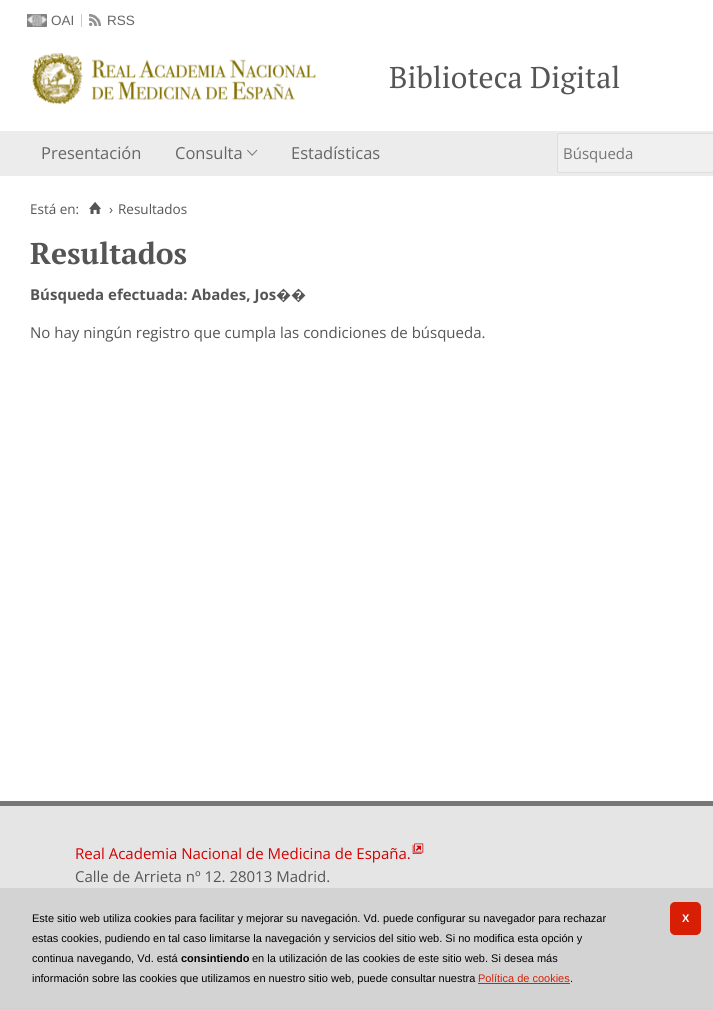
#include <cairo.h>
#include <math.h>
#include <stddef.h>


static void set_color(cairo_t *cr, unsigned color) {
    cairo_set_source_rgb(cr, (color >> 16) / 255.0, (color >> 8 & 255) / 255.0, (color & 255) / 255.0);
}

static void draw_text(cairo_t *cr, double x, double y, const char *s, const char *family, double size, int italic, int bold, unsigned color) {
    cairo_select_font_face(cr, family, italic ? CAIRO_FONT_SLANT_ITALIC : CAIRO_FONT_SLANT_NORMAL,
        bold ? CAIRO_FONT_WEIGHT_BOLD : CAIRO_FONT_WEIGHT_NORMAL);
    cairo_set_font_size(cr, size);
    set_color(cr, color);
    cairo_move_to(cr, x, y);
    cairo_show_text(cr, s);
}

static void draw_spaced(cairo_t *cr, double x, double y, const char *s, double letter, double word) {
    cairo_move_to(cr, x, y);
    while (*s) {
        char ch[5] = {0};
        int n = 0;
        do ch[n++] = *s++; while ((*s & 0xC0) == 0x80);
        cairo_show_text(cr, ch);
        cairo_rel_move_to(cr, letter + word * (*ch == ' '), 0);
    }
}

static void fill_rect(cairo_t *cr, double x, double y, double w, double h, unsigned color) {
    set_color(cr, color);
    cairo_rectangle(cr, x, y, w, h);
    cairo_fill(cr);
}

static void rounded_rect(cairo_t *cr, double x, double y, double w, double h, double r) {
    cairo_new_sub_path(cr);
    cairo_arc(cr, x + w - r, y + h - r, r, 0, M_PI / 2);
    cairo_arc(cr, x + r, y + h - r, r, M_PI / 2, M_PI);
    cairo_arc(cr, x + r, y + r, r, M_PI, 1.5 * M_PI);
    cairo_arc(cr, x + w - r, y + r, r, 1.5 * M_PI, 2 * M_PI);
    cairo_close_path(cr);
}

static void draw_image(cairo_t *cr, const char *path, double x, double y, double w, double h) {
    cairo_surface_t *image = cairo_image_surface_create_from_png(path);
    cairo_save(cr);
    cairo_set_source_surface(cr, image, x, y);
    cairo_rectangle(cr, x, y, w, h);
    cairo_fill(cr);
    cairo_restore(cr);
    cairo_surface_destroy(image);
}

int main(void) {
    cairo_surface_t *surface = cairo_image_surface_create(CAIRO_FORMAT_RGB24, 713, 1009);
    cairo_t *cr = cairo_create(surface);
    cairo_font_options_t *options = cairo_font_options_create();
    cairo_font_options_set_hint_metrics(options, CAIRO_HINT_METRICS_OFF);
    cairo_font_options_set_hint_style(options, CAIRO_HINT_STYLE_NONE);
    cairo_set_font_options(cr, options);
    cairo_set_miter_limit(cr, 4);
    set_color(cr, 0xFFFFFF);
    cairo_paint(cr);
    draw_image(cr, "assets/img1.png", 27, 14, 20, 13);
    draw_text(cr, 51, 25, "OAI", "Liberation Sans", 13.5, 0, 0, 0x666666);
    fill_rect(cr, 81, 14, 1, 13, 0xCCCCCC);
    draw_image(cr, "assets/img2.png", 89, 14, 12, 12);
    draw_text(cr, 107, 25, "RSS", "Liberation Sans", 13.5, 0, 0, 0x666666);
    draw_image(cr, "assets/img3.png", 32, 53, 284, 52);
    draw_text(cr, 389, 88, "Biblioteca Digital", "PT Serif", 30, 0, 0, 0x555555);
    fill_rect(cr, 0, 131, 713, 45, 0xECECEC);
    draw_text(cr, 41, 159, "Presentación", "Open Sans", 16.5, 0, 0, 0x666666);
    draw_text(cr, 175, 159, "Consulta", "Open Sans", 16.5, 0, 0, 0x666666);
    draw_image(cr, "assets/img4.png", 247, 149, 11, 7);
    draw_text(cr, 291, 159, "Estadísticas", "Open Sans", 16.5, 0, 0, 0x666666);
    set_color(cr, 0xF0F0F0);
    rounded_rect(cr, 557.5, 133.5, 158, 39, 1.5);
    cairo_fill_preserve(cr);
    set_color(cr, 0xDDDDDD);
    cairo_set_line_width(cr, 1);
    cairo_stroke(cr);
    draw_text(cr, 563, 159, "Búsqueda", "Open Sans", 15, 0, 0, 0x757575);
    draw_text(cr, 30, 214, "Está en:", "Open Sans", 13.5, 0, 0, 0x555555);
    draw_image(cr, "assets/img5.png", 89, 202, 12, 12);
    draw_text(cr, 109, 214, "›", "Open Sans", 13.5, 0, 0, 0x555555);
    draw_text(cr, 118, 214, "Resultados", "Open Sans", 13.5, 0, 0, 0x555555);
    draw_text(cr, 30, 264, "Resultados", "PT Serif", 30, 0, 1, 0x555555);
    draw_text(cr, 30, 300, "Búsqueda efectuada: Abades, Jos��", "Open Sans", 15, 0, 1, 0x555555);
    draw_text(cr, 30, 338, "No hay ningún registro que cumpla las condiciones de búsqueda.", "Open Sans", 15, 0, 0, 0x555555);
    fill_rect(cr, 0, 806, 713, 82, 0xE5E5E5);
    fill_rect(cr, 0, 888, 713, 121, 0xD3D3D3);
    fill_rect(cr, 0, 801, 713, 5, 0x777777);
    draw_text(cr, 75, 859, "Real Academia Nacional de Medicina de España.", "Open Sans", 15, 0, 0, 0xD10000);
    draw_image(cr, "assets/img6.png", 412, 843, 12, 11);
    draw_text(cr, 75, 882, "Calle de Arrieta nº 12. 28013 Madrid.", "Open Sans", 15, 0, 0, 0x555555);
    cairo_new_path(cr);
    cairo_move_to(cr, 0, 1008.5);
    cairo_line_to(cr, 713, 1008.5);
    set_color(cr, 0xCCCCCC);
    cairo_set_dash(cr, (double[]){1, 1}, 2, 0);
    cairo_stroke(cr);
    draw_text(cr, 32, 922, "Este sitio web utiliza cookies para facilitar y mejorar su navegación. Vd. puede configurar su navegador para rechazar", "Liberation Sans", 11, 0, 0, 0x000000);
    draw_text(cr, 32, 942, "estas cookies, pudiendo en tal caso limitarse la navegación y servicios del sitio web. Si no modifica esta opción y", "Liberation Sans", 11, 0, 0, 0x000000);
    draw_text(cr, 32, 962, "continua navegando, Vd. está", "Liberation Sans", 11, 0, 0, 0x000000);
    draw_text(cr, 181, 962, "consintiendo", "Liberation Sans", 11, 0, 1, 0x000000);
    draw_text(cr, 252, 962, "en la utilización de las cookies de este sitio web. Si desea más", "Liberation Sans", 11, 0, 0, 0x000000);
    draw_text(cr, 32, 982, "información sobre las cookies que utilizamos en nuestro sitio web, puede consultar nuestra", "Liberation Sans", 11, 0, 0, 0x000000);
    draw_text(cr, 478, 982, "Política de cookies", "Liberation Sans", 11, 0, 0, 0xD81E05);
    draw_text(cr, 570, 982, ".", "Liberation Sans", 11, 0, 0, 0x000000);
    fill_rect(cr, 478, 983, 92, 1, 0xD81E05);
    rounded_rect(cr, 670, 902, 31, 33, 5);
    cairo_fill(cr);
    cairo_select_font_face(cr, "Liberation Sans", CAIRO_FONT_SLANT_NORMAL, CAIRO_FONT_WEIGHT_BOLD);
    set_color(cr, 0xFFFFFF);
    draw_spaced(cr, 682, 922, "X", -1, 0);
    cairo_surface_write_to_png(surface, "output.png");
    cairo_font_options_destroy(options);
    cairo_destroy(cr);
    cairo_surface_destroy(surface);
    return 0;
}
